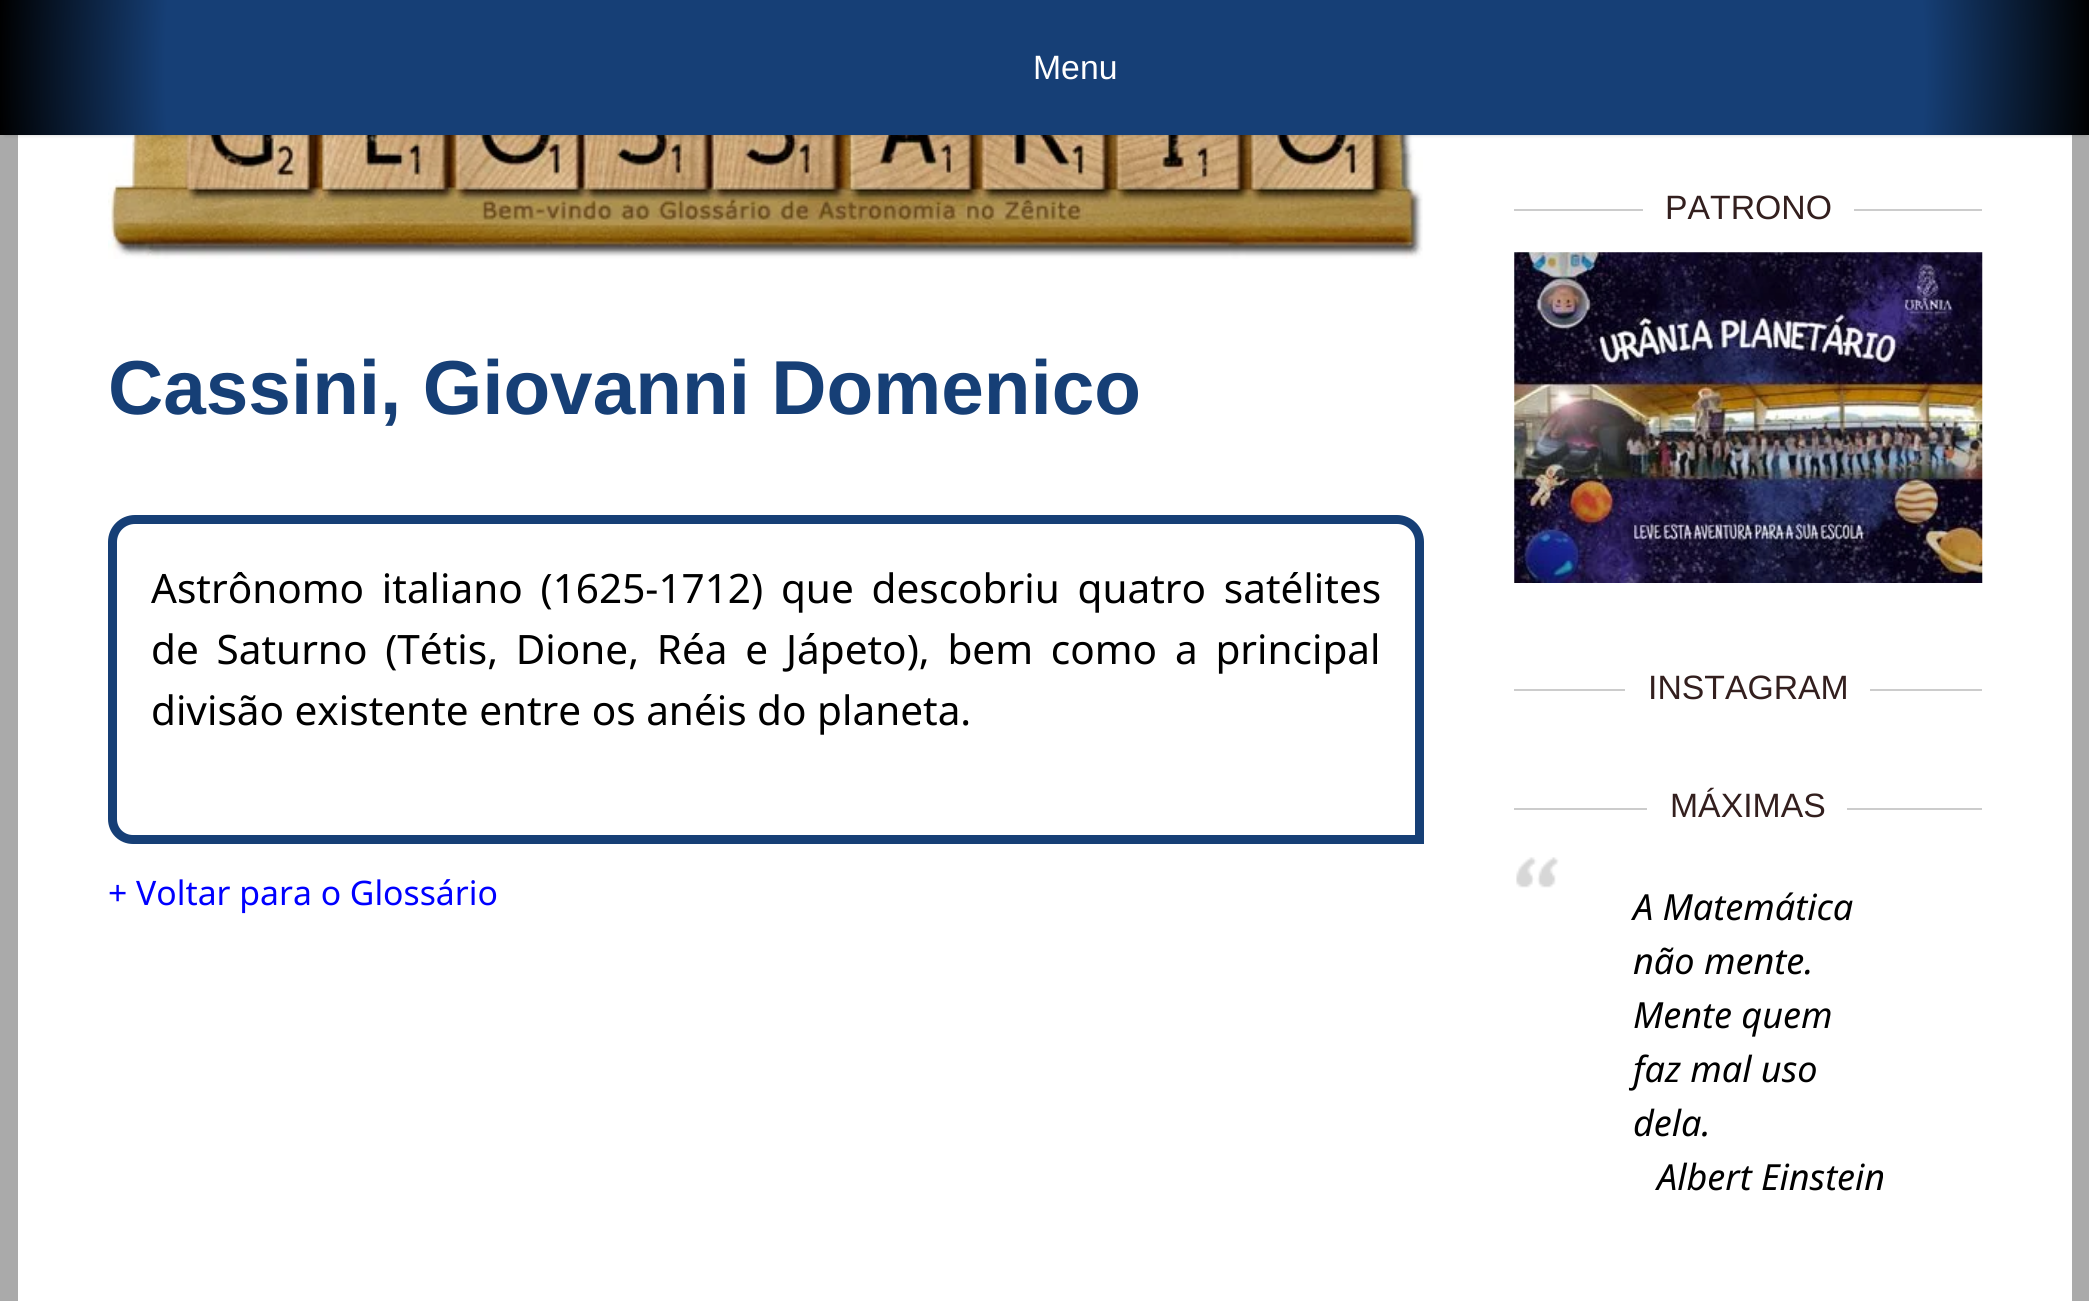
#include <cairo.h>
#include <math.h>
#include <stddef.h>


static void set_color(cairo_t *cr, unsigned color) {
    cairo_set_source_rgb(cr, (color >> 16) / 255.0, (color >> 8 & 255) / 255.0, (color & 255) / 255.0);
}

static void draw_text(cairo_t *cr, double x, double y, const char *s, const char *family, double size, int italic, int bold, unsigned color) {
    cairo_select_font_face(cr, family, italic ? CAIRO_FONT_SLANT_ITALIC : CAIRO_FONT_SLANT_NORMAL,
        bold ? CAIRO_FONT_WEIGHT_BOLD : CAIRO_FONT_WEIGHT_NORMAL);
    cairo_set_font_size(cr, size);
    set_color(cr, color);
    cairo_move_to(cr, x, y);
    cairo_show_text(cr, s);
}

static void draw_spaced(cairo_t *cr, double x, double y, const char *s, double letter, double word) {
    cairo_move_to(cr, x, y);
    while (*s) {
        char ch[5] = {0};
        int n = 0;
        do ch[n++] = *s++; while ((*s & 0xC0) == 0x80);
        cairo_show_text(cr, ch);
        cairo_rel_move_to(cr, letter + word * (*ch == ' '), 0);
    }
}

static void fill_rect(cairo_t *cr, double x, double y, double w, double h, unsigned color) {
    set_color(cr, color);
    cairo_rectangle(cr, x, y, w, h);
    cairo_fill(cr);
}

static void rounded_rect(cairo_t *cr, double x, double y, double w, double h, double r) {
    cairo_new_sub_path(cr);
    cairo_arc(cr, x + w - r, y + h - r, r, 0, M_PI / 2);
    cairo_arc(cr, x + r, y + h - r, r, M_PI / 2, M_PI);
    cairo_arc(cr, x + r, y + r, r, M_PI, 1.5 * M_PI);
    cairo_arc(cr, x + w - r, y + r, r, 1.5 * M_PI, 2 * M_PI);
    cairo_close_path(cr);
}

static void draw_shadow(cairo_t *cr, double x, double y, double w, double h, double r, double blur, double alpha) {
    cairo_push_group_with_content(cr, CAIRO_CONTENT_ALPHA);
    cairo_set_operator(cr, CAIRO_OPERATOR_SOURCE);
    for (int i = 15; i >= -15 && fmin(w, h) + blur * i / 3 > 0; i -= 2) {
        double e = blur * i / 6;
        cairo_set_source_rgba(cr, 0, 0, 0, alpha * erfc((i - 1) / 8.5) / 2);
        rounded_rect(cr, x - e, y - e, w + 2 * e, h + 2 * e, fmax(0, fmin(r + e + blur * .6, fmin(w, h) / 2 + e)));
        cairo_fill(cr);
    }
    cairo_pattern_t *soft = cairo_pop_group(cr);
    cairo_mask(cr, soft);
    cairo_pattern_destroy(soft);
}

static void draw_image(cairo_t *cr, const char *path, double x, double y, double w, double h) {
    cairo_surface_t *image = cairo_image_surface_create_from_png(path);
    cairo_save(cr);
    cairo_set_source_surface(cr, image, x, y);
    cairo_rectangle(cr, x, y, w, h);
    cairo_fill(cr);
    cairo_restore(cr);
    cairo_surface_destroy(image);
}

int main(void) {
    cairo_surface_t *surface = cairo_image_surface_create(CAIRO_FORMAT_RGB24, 2089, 1301);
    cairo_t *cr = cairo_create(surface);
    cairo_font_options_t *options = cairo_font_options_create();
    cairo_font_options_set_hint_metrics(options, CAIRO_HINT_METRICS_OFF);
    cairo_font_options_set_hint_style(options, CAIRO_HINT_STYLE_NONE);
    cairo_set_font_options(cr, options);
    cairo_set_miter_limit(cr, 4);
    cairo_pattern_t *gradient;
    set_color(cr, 0xFFFFFF);
    cairo_paint(cr);
    cairo_rectangle(cr, 9, -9, 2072, 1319);
    set_color(cr, 0xAAAAAA);
    cairo_set_line_width(cr, 18);
    cairo_stroke(cr);
    draw_image(cr, "assets/img1.png", 108, 135, 1315, 124);
    set_color(cr, 0x000000);
    draw_shadow(cr, 5, 9, 2081, 126, 0, 2, 0.2);
    gradient = cairo_pattern_create_radial(1045, 68, 0, 1045, 68, 1047);
    cairo_pattern_add_color_stop_rgba(gradient, 0, 0.086, 0.247, 0.463, 1);
    cairo_pattern_add_color_stop_rgba(gradient, 0.84, 0.086, 0.247, 0.463, 1);
    cairo_pattern_add_color_stop_rgba(gradient, 1, 0, 0, 0, 1);
    cairo_set_source(cr, gradient);
    cairo_pattern_destroy(gradient);
    cairo_rectangle(cr, 0, 0, 2089, 135);
    cairo_fill(cr);
    draw_text(cr, 1033, 79, "Menu", "Liberation Sans", 33.75, 0, 0, 0xFFFFFF);
    draw_text(cr, 108, 414, "Cassini, Giovanni Domenico", "Liberation Sans", 76.5, 0, 1, 0x163F76);
    cairo_new_path(cr);
    cairo_move_to(cr, 135, 519.5);
    cairo_line_to(cr, 1397, 519.5);
    cairo_curve_to(cr, 1409.5, 519.5, 1419.5, 529.5, 1419.5, 542);
    cairo_line_to(cr, 1419.5, 839.5);
    cairo_line_to(cr, 133, 839.5);
    cairo_curve_to(cr, 121.5, 839.5, 112.5, 830.5, 112.5, 819);
    cairo_line_to(cr, 112.5, 542);
    cairo_curve_to(cr, 112.5, 529.5, 122.5, 519.5, 135, 519.5);
    cairo_close_path(cr);
    cairo_set_line_width(cr, 9);
    cairo_stroke(cr);
    cairo_select_font_face(cr, "Noto Sans", CAIRO_FONT_SLANT_NORMAL, CAIRO_FONT_WEIGHT_NORMAL);
    cairo_set_font_size(cr, 40.5);
    set_color(cr, 0x000000);
    draw_spaced(cr, 151, 603, "Astrônomo italiano (1625-1712) que descobriu quatro satélites", 0, 7.25);
    draw_spaced(cr, 151, 664, "de Saturno (Tétis, Dione, Réa e Jápeto), bem como a principal", 0, 7.25);
    draw_text(cr, 151, 725, "divisão existente entre os anéis do planeta.", "Noto Sans", 40.5, 0, 0, 0x000000);
    draw_text(cr, 108, 905, "+ Voltar para o Glossário", "Noto Sans", 33.75, 0, 0, 0x0000FF);
    fill_rect(cr, 1514, 209, 129, 2, 0xCCCCCC);
    draw_text(cr, 1665, 219, "PATRONO", "Liberation Sans", 33.75, 0, 0, 0x331F1E);
    fill_rect(cr, 1854, 209, 128, 2, 0xCCCCCC);
    draw_image(cr, "assets/img2.png", 1514, 252, 469, 331);
    fill_rect(cr, 1514, 689, 111, 2, 0xCCCCCC);
    draw_text(cr, 1648, 699, "INSTAGRAM", "Liberation Sans", 33.75, 0, 0, 0x331F1E);
    fill_rect(cr, 1870, 689, 112, 2, 0xCCCCCC);
    fill_rect(cr, 1514, 808, 133, 2, 0xCCCCCC);
    draw_text(cr, 1670, 817, "MÁXIMAS", "Liberation Sans", 33.75, 0, 0, 0x331F1E);
    fill_rect(cr, 1847, 808, 135, 2, 0xCCCCCC);
    draw_image(cr, "assets/img3.png", 1516, 857, 43, 31);
    draw_text(cr, 1633, 920, "A Matemática", "Noto Sans", 36, 1, 0, 0x000000);
    draw_text(cr, 1633, 974, "não mente.", "Noto Sans", 36, 1, 0, 0x000000);
    draw_text(cr, 1633, 1028, "Mente quem", "Noto Sans", 36, 1, 0, 0x000000);
    draw_text(cr, 1633, 1082, "faz mal uso", "Noto Sans", 36, 1, 0, 0x000000);
    draw_text(cr, 1633, 1136, "dela.", "Noto Sans", 36, 1, 0, 0x000000);
    draw_text(cr, 1657, 1190, "Albert Einstein", "Noto Sans", 36, 1, 0, 0x000000);
    cairo_surface_write_to_png(surface, "output.png");
    cairo_font_options_destroy(options);
    cairo_destroy(cr);
    cairo_surface_destroy(surface);
    return 0;
}
